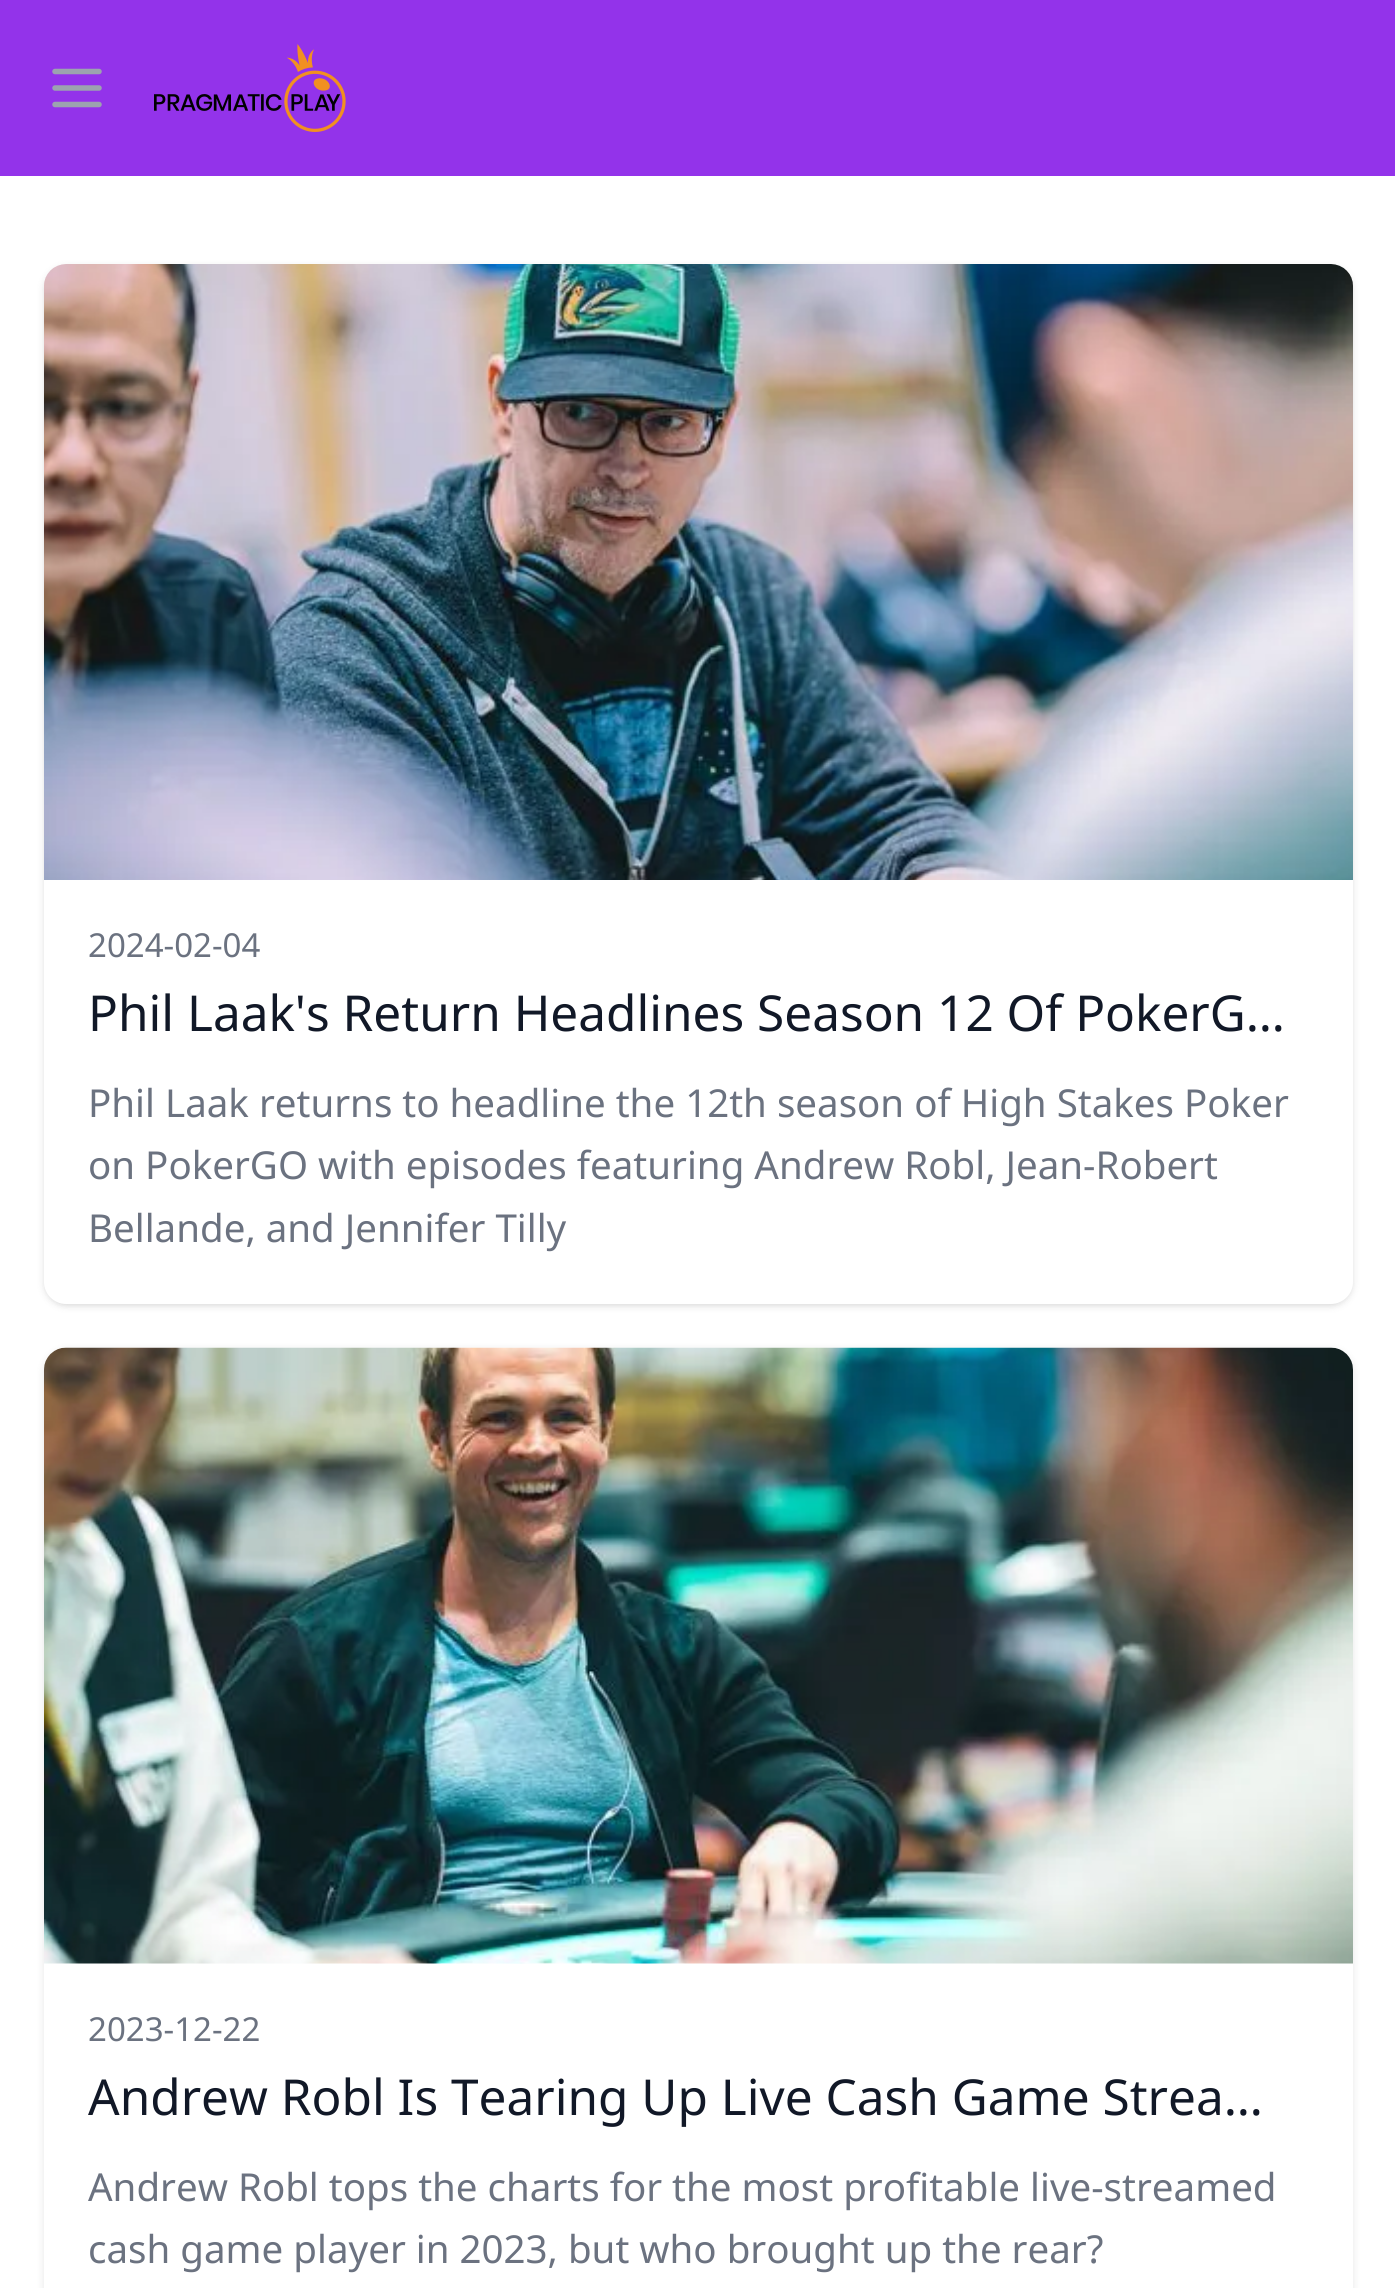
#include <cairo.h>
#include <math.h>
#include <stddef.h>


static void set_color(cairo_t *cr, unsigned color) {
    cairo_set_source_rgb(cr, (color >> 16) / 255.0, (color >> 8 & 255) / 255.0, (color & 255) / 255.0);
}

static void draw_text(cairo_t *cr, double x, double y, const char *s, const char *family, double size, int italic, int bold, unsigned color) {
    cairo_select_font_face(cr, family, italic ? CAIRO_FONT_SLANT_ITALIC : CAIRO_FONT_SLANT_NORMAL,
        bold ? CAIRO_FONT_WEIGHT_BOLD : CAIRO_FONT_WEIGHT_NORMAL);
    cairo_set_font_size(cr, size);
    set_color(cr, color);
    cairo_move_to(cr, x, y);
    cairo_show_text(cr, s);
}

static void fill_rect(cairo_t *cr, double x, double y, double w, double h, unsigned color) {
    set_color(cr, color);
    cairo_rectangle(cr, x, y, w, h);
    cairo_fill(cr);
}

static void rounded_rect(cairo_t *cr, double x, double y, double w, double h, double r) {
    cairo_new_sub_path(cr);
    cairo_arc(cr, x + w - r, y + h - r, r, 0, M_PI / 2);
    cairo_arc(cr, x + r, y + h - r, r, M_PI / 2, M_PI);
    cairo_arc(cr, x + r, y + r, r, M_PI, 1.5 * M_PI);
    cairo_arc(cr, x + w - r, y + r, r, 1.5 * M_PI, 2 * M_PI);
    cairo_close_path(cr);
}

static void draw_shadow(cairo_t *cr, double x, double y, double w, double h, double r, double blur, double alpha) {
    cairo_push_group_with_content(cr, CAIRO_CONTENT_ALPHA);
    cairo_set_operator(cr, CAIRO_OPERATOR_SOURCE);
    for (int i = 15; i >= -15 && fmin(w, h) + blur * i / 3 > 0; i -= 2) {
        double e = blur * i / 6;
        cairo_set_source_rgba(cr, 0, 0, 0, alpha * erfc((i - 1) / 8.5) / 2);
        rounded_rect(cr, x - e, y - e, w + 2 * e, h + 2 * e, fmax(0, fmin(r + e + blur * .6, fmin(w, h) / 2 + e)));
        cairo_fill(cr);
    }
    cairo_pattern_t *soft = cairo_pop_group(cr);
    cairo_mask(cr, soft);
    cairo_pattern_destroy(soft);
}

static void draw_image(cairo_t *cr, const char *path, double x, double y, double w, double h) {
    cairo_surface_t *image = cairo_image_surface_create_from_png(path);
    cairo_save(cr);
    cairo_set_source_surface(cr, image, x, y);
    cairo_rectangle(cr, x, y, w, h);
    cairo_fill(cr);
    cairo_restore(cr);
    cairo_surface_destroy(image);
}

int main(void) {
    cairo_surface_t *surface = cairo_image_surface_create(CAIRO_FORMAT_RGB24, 1395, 2288);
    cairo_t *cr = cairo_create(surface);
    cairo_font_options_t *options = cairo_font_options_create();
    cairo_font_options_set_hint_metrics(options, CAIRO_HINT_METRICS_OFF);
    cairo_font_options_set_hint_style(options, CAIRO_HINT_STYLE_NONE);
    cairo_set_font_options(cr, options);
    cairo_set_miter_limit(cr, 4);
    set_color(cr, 0xFFFFFF);
    cairo_paint(cr);
    fill_rect(cr, 0, 0, 1395, 176, 0x9333EA);
    cairo_new_path(cr);
    cairo_move_to(cr, 55, 71.5);
    cairo_line_to(cr, 99, 71.5);
    cairo_move_to(cr, 55, 88);
    cairo_line_to(cr, 99, 88);
    cairo_move_to(cr, 55, 104.5);
    cairo_line_to(cr, 99, 104.5);
    set_color(cr, 0x9CA3AF);
    cairo_set_line_width(cr, 5.5);
    cairo_set_line_cap(cr, CAIRO_LINE_CAP_ROUND);
    cairo_set_line_join(cr, CAIRO_LINE_JOIN_ROUND);
    cairo_stroke(cr);
    draw_image(cr, "assets/img1.png", 154, 44, 192, 88);
    set_color(cr, 0x000000);
    draw_shadow(cr, 47, 270, 1303, 1034, 19, 3, 0.1);
    draw_shadow(cr, 44, 267, 1309, 1039, 22, 4, 0.1);
    draw_image(cr, "assets/img2.png", 44, 264, 1309, 616);
    set_color(cr, 0xFFFFFF);
    cairo_new_path(cr);
    cairo_move_to(cr, 44, 880);
    cairo_line_to(cr, 1353, 880);
    cairo_line_to(cr, 1353, 1282);
    cairo_curve_to(cr, 1353, 1294, 1343, 1304, 1331, 1304);
    cairo_line_to(cr, 66, 1304);
    cairo_curve_to(cr, 54, 1304, 44, 1294, 44, 1282);
    cairo_close_path(cr);
    cairo_fill(cr);
    draw_text(cr, 88, 957, "2024-02-04", "Noto Sans", 33, 0, 0, 0x6B7280);
    draw_text(cr, 88, 1031, "Phil Laak's Return Headlines Season 12 Of PokerG…", "Noto Sans", 49.5, 0, 0, 0x111827);
    draw_text(cr, 88, 1117, "Phil Laak returns to headline the 12th season of High Stakes Poker", "Noto Sans", 38.5, 0, 0, 0x6B7280);
    draw_text(cr, 88, 1179, "on PokerGO with episodes featuring Andrew Robl, Jean-Robert", "Noto Sans", 38.5, 0, 0, 0x6B7280);
    draw_text(cr, 88, 1242, "Bellande, and Jennifer Tilly", "Noto Sans", 38.5, 0, 0, 0x6B7280);
    cairo_save(cr);
    cairo_set_fill_rule(cr, CAIRO_FILL_RULE_EVEN_ODD);
    cairo_new_path(cr);
    cairo_move_to(cr, 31, 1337);
    cairo_line_to(cr, 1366, 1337);
    cairo_line_to(cr, 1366, 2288);
    cairo_line_to(cr, 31, 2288);
    cairo_close_path(cr);
    cairo_move_to(cr, 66, 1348);
    cairo_line_to(cr, 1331, 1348);
    cairo_curve_to(cr, 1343, 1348, 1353, 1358, 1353, 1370);
    cairo_line_to(cr, 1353, 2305);
    cairo_curve_to(cr, 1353, 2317, 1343, 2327, 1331, 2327);
    cairo_line_to(cr, 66, 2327);
    cairo_curve_to(cr, 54, 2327, 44, 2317, 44, 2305);
    cairo_line_to(cr, 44, 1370);
    cairo_curve_to(cr, 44, 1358, 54, 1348, 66, 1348);
    cairo_close_path(cr);
    cairo_clip(cr);
    set_color(cr, 0x000000);
    draw_shadow(cr, 44, 1350, 1309, 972, 22, 4, 0.1);
    cairo_restore(cr);
    draw_image(cr, "assets/img3.png", 44, 1347, 1309, 617);
    draw_text(cr, 88, 2041, "2023-12-22", "Noto Sans", 33, 0, 0, 0x6B7280);
    draw_text(cr, 88, 2115, "Andrew Robl Is Tearing Up Live Cash Game Strea…", "Noto Sans", 49.5, 0, 0, 0x111827);
    draw_text(cr, 88, 2201, "Andrew Robl tops the charts for the most profitable live-streamed", "Noto Sans", 38.5, 0, 0, 0x6B7280);
    draw_text(cr, 88, 2263, "cash game player in 2023, but who brought up the rear?", "Noto Sans", 38.5, 0, 0, 0x6B7280);
    cairo_surface_write_to_png(surface, "output.png");
    cairo_font_options_destroy(options);
    cairo_destroy(cr);
    cairo_surface_destroy(surface);
    return 0;
}
